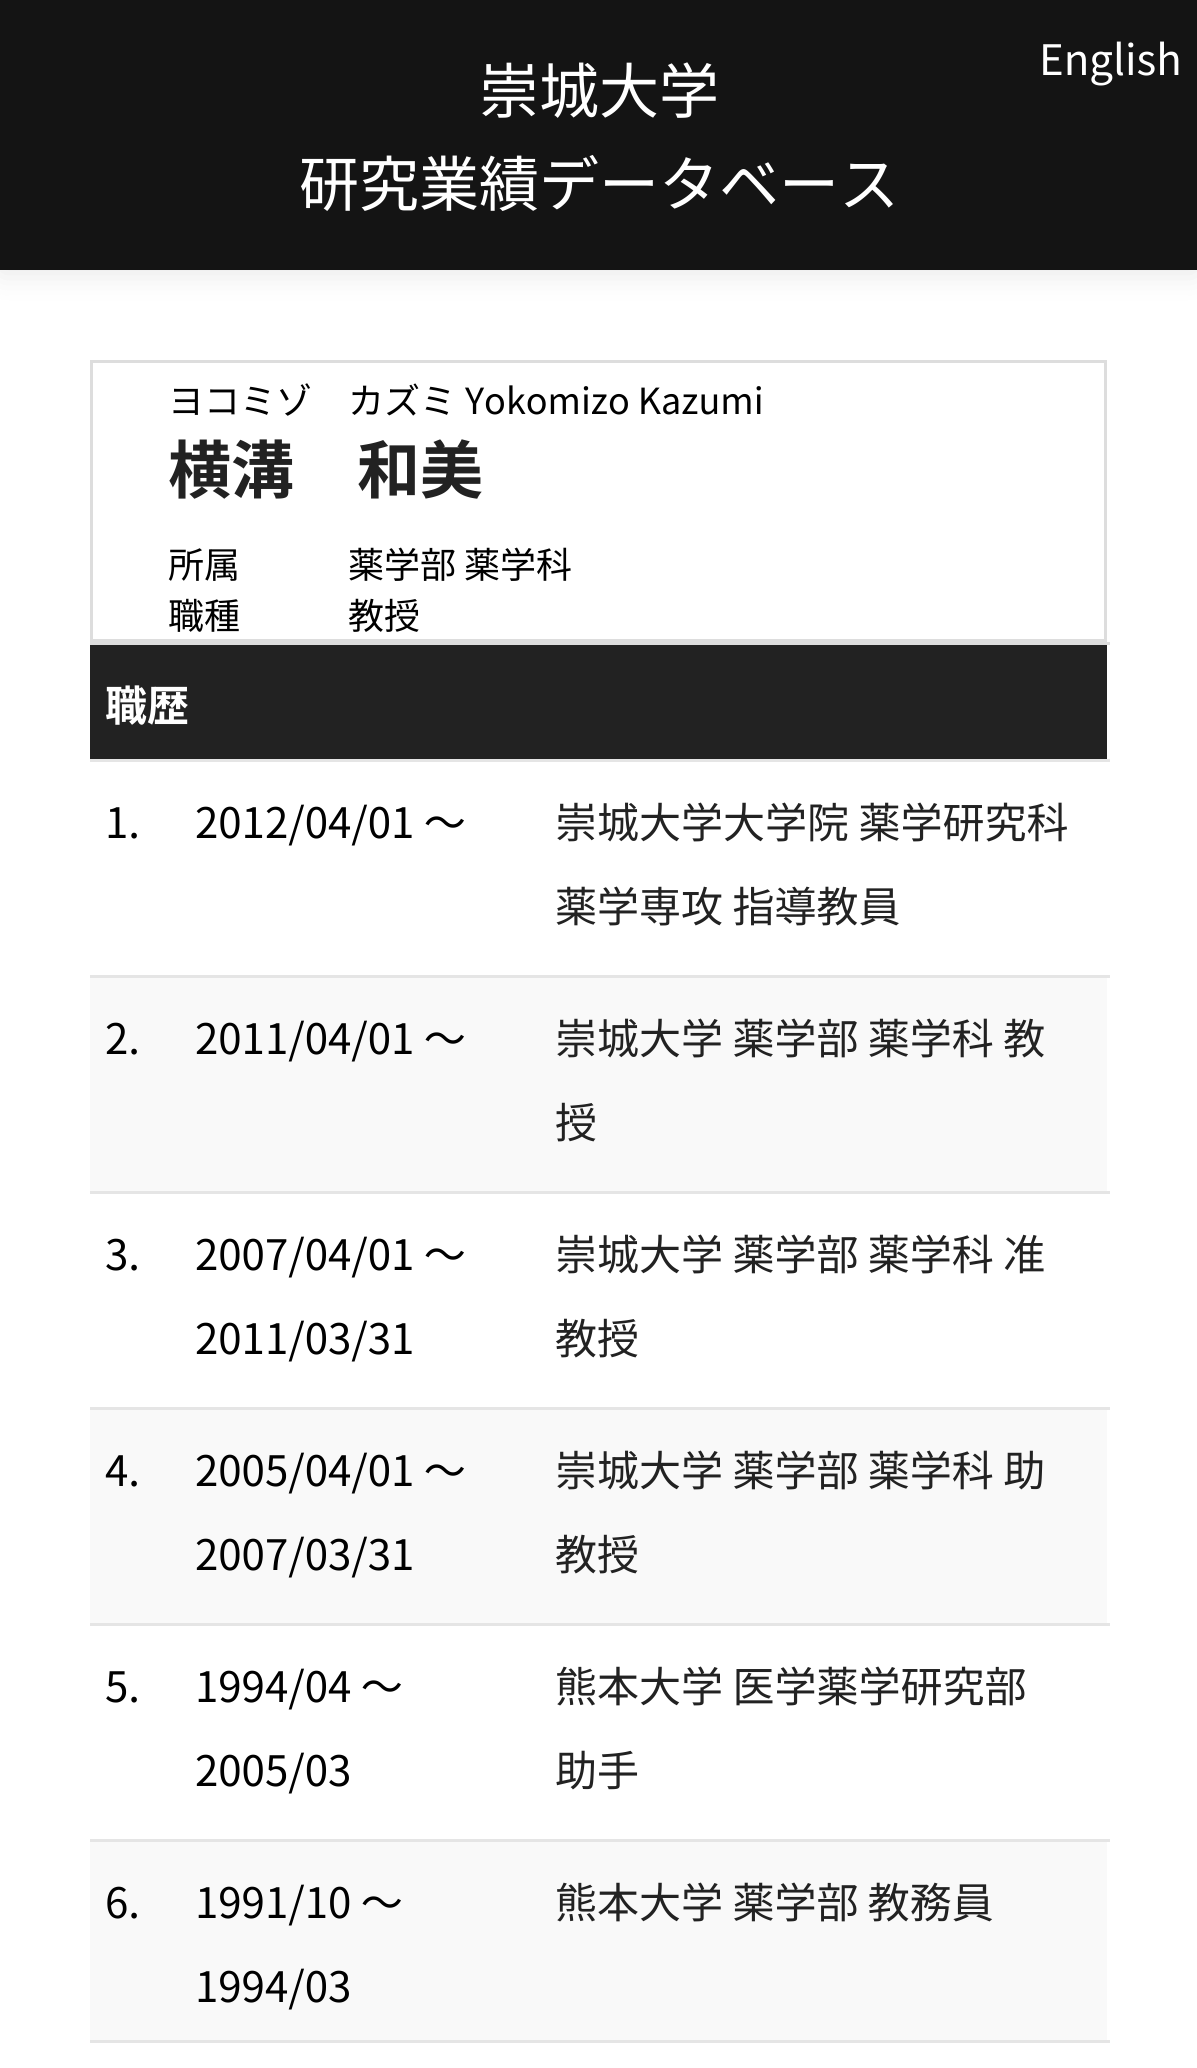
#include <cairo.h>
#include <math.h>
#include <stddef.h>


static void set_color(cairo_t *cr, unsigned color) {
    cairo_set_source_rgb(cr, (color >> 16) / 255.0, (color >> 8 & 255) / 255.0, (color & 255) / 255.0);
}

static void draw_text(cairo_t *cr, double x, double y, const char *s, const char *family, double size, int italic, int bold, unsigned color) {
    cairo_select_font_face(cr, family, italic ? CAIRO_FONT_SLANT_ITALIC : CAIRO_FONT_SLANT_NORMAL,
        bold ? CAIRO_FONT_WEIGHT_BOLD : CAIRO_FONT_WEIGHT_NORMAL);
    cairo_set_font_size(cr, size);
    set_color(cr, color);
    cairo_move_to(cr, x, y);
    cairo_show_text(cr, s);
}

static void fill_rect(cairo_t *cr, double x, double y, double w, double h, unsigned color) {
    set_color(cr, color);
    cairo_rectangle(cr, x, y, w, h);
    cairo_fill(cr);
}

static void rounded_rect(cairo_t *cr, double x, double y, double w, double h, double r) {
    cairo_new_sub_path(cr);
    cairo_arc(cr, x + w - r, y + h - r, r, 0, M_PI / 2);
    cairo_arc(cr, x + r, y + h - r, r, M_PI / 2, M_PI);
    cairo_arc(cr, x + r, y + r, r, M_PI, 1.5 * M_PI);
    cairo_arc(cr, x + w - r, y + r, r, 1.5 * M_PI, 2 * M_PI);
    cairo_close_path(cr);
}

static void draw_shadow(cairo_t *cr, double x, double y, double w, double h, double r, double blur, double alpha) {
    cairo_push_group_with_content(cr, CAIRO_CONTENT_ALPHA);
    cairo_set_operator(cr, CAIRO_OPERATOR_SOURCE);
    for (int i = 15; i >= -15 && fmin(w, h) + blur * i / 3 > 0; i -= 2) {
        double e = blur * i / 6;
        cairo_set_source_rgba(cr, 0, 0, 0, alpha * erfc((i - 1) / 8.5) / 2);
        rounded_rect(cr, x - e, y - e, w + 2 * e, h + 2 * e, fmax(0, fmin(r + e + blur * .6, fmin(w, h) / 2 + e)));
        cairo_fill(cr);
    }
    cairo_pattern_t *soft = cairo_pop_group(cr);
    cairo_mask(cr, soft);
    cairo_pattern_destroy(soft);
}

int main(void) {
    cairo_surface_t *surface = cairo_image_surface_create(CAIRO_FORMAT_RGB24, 1197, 2068);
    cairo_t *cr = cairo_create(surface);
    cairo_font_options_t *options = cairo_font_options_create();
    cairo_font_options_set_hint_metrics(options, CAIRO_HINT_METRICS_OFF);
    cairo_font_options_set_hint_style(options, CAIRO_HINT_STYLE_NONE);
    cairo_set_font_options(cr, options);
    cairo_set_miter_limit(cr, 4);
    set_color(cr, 0xFFFFFF);
    cairo_paint(cr);
    set_color(cr, 0x000000);
    draw_shadow(cr, 0, 3, 1197, 270, 0, 15, 0.1);
    fill_rect(cr, 0, 0, 1197, 270, 0x141414);
    draw_text(cr, 479, 113, "崇城大学", "Noto Sans JP", 60, 0, 0, 0xFFFFFF);
    draw_text(cr, 299, 206, "研究業績データベース", "Noto Sans JP", 60, 0, 0, 0xFFFFFF);
    draw_text(cr, 1039, 75, "English", "Noto Sans JP", 42, 0, 0, 0xFFFFFF);
    cairo_rectangle(cr, 91.5, 361.5, 1014, 279);
    set_color(cr, 0xDDDDDD);
    cairo_set_line_width(cr, 3);
    cairo_stroke(cr);
    draw_text(cr, 168, 414, "ヨコミゾ　カズミ", "Noto Sans JP", 36, 0, 0, 0x000000);
    draw_text(cr, 465, 414, "Yokomizo Kazumi", "Noto Sans JP", 36, 0, 0, 0x000000);
    draw_text(cr, 168, 493, "横溝　和美", "Noto Sans JP", 63, 0, 1, 0x222222);
    draw_text(cr, 168, 578, "所属", "Noto Sans JP", 36, 0, 0, 0x000000);
    draw_text(cr, 348, 578, "薬学部 薬学科", "Noto Sans JP", 36, 0, 0, 0x000000);
    draw_text(cr, 168, 629, "職種", "Noto Sans JP", 36, 0, 0, 0x000000);
    draw_text(cr, 348, 629, "教授", "Noto Sans JP", 36, 0, 0, 0x000000);
    fill_rect(cr, 90, 645, 1017, 114, 0x222222);
    fill_rect(cr, 90, 642, 1020, 3, 0xDDDDDD);
    fill_rect(cr, 90, 759, 1020, 3, 0xE5E5E5);
    draw_text(cr, 105, 721, "職歴", "Noto Sans JP", 42, 0, 1, 0xFFFFFF);
    draw_text(cr, 105, 838, "1.", "Noto Sans JP", 42, 0, 0, 0x000000);
    draw_text(cr, 195, 838, "2012/04/01 ～", "Noto Sans JP", 42, 0, 0, 0x000000);
    fill_rect(cr, 90, 975, 1020, 3, 0xE5E5E5);
    draw_text(cr, 555, 838, "崇城大学大学院 薬学研究科", "Noto Sans JP", 42, 0, 0, 0x222222);
    draw_text(cr, 555, 922, "薬学専攻 指導教員", "Noto Sans JP", 42, 0, 0, 0x222222);
    fill_rect(cr, 90, 978, 1017, 213, 0xF9F9F9);
    draw_text(cr, 105, 1054, "2.", "Noto Sans JP", 42, 0, 0, 0x000000);
    draw_text(cr, 195, 1054, "2011/04/01 ～", "Noto Sans JP", 42, 0, 0, 0x000000);
    fill_rect(cr, 90, 1191, 1020, 3, 0xE5E5E5);
    draw_text(cr, 555, 1054, "崇城大学 薬学部 薬学科 教", "Noto Sans JP", 42, 0, 0, 0x222222);
    draw_text(cr, 555, 1138, "授", "Noto Sans JP", 42, 0, 0, 0x222222);
    draw_text(cr, 105, 1270, "3.", "Noto Sans JP", 42, 0, 0, 0x000000);
    draw_text(cr, 195, 1270, "2007/04/01 ～", "Noto Sans JP", 42, 0, 0, 0x000000);
    draw_text(cr, 195, 1354, "2011/03/31", "Noto Sans JP", 42, 0, 0, 0x000000);
    fill_rect(cr, 90, 1407, 1020, 3, 0xE5E5E5);
    draw_text(cr, 555, 1270, "崇城大学 薬学部 薬学科 准", "Noto Sans JP", 42, 0, 0, 0x222222);
    draw_text(cr, 555, 1354, "教授", "Noto Sans JP", 42, 0, 0, 0x222222);
    fill_rect(cr, 90, 1410, 1017, 213, 0xF9F9F9);
    draw_text(cr, 105, 1486, "4.", "Noto Sans JP", 42, 0, 0, 0x000000);
    draw_text(cr, 195, 1486, "2005/04/01 ～", "Noto Sans JP", 42, 0, 0, 0x000000);
    draw_text(cr, 195, 1570, "2007/03/31", "Noto Sans JP", 42, 0, 0, 0x000000);
    fill_rect(cr, 90, 1623, 1020, 3, 0xE5E5E5);
    draw_text(cr, 555, 1486, "崇城大学 薬学部 薬学科 助", "Noto Sans JP", 42, 0, 0, 0x222222);
    draw_text(cr, 555, 1570, "教授", "Noto Sans JP", 42, 0, 0, 0x222222);
    draw_text(cr, 105, 1702, "5.", "Noto Sans JP", 42, 0, 0, 0x000000);
    draw_text(cr, 195, 1702, "1994/04 ～", "Noto Sans JP", 42, 0, 0, 0x000000);
    draw_text(cr, 195, 1786, "2005/03", "Noto Sans JP", 42, 0, 0, 0x000000);
    fill_rect(cr, 90, 1839, 1020, 3, 0xE5E5E5);
    draw_text(cr, 555, 1702, "熊本大学 医学薬学研究部", "Noto Sans JP", 42, 0, 0, 0x222222);
    draw_text(cr, 555, 1786, "助手", "Noto Sans JP", 42, 0, 0, 0x222222);
    fill_rect(cr, 90, 1842, 1017, 198, 0xF9F9F9);
    draw_text(cr, 105, 1918, "6.", "Noto Sans JP", 42, 0, 0, 0x000000);
    draw_text(cr, 195, 1918, "1991/10 ～", "Noto Sans JP", 42, 0, 0, 0x000000);
    draw_text(cr, 195, 2002, "1994/03", "Noto Sans JP", 42, 0, 0, 0x000000);
    fill_rect(cr, 90, 2040, 1020, 3, 0xE5E5E5);
    draw_text(cr, 555, 1918, "熊本大学 薬学部 教務員", "Noto Sans JP", 42, 0, 0, 0x222222);
    cairo_surface_write_to_png(surface, "output.png");
    cairo_font_options_destroy(options);
    cairo_destroy(cr);
    cairo_surface_destroy(surface);
    return 0;
}
